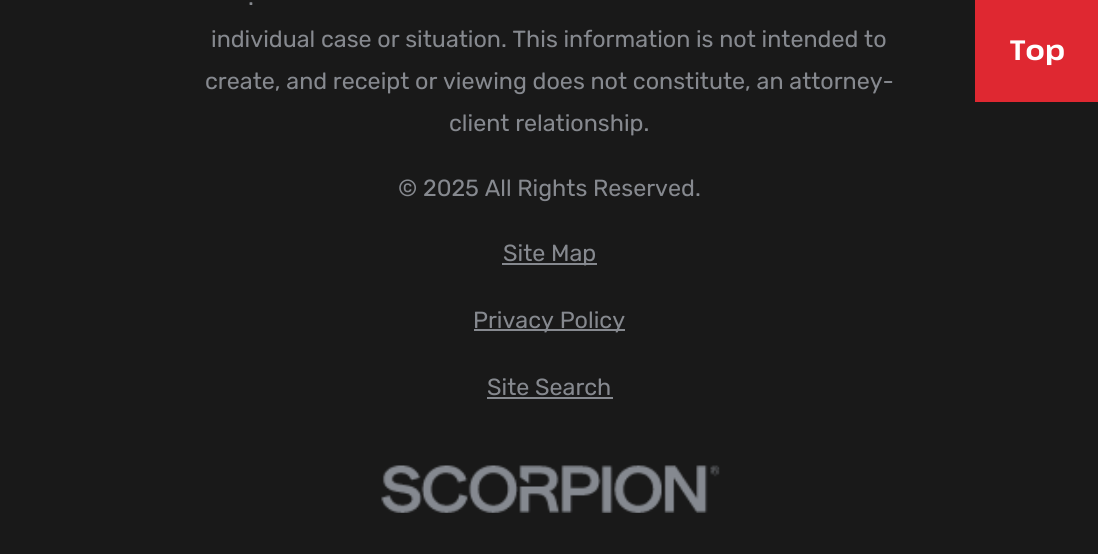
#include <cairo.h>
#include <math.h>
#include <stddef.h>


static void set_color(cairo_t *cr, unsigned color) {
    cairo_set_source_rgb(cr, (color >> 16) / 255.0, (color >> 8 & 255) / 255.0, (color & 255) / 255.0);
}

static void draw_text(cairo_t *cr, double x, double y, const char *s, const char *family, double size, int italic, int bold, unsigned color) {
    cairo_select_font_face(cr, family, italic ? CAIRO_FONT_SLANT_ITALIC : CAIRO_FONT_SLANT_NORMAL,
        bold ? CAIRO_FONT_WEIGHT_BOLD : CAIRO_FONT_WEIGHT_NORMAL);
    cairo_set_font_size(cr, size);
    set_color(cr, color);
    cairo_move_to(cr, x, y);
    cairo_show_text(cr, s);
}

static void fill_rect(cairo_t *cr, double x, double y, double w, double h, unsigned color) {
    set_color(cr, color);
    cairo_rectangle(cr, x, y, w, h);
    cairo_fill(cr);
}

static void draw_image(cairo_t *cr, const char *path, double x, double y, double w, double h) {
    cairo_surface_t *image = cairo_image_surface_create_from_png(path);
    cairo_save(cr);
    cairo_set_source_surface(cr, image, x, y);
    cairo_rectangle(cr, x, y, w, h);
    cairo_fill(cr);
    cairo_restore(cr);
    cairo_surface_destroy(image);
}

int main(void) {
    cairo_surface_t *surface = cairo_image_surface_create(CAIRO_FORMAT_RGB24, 1098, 554);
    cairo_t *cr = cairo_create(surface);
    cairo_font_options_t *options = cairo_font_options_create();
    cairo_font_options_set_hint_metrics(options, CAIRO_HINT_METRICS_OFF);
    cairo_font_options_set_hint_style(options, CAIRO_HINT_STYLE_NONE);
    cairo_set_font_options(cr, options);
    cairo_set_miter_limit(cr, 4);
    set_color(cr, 0x191919);
    cairo_paint(cr);
    draw_text(cr, 248, 5, ".", "Rubik", 23.3, 0, 0, 0x86898F);
    draw_text(cr, 211, 47, "individual case or situation. This information is not intended to", "Rubik", 23.3, 0, 0, 0x86898F);
    draw_text(cr, 205, 89, "create, and receipt or viewing does not constitute, an attorney-", "Rubik", 23.3, 0, 0, 0x86898F);
    draw_text(cr, 449, 131, "client relationship.", "Rubik", 23.3, 0, 0, 0x86898F);
    draw_text(cr, 398, 196, "© 2025 All Rights Reserved.", "Rubik", 23.3, 0, 0, 0x86898F);
    fill_rect(cr, 502, 263, 95, 2, 0x86898F);
    draw_text(cr, 503, 261, "Site Map", "Rubik", 23.3, 0, 0, 0x86898F);
    fill_rect(cr, 474, 329, 151, 2, 0x86898F);
    draw_text(cr, 473, 328, "Privacy Policy", "Rubik", 23.3, 0, 0, 0x86898F);
    draw_text(cr, 487, 395, "Site Search", "Rubik", 23.3, 0, 0, 0x86898F);
    fill_rect(cr, 487, 397, 126, 2, 0x86898F);
    draw_image(cr, "assets/img1.png", 381, 465, 339, 48);
    fill_rect(cr, 975, 0, 123, 102, 0xDF2831);
    draw_text(cr, 1010, 60, "Top", "Pathway Extreme", 28, 0, 1, 0xFFFFFF);
    cairo_surface_write_to_png(surface, "output.png");
    cairo_font_options_destroy(options);
    cairo_destroy(cr);
    cairo_surface_destroy(surface);
    return 0;
}
